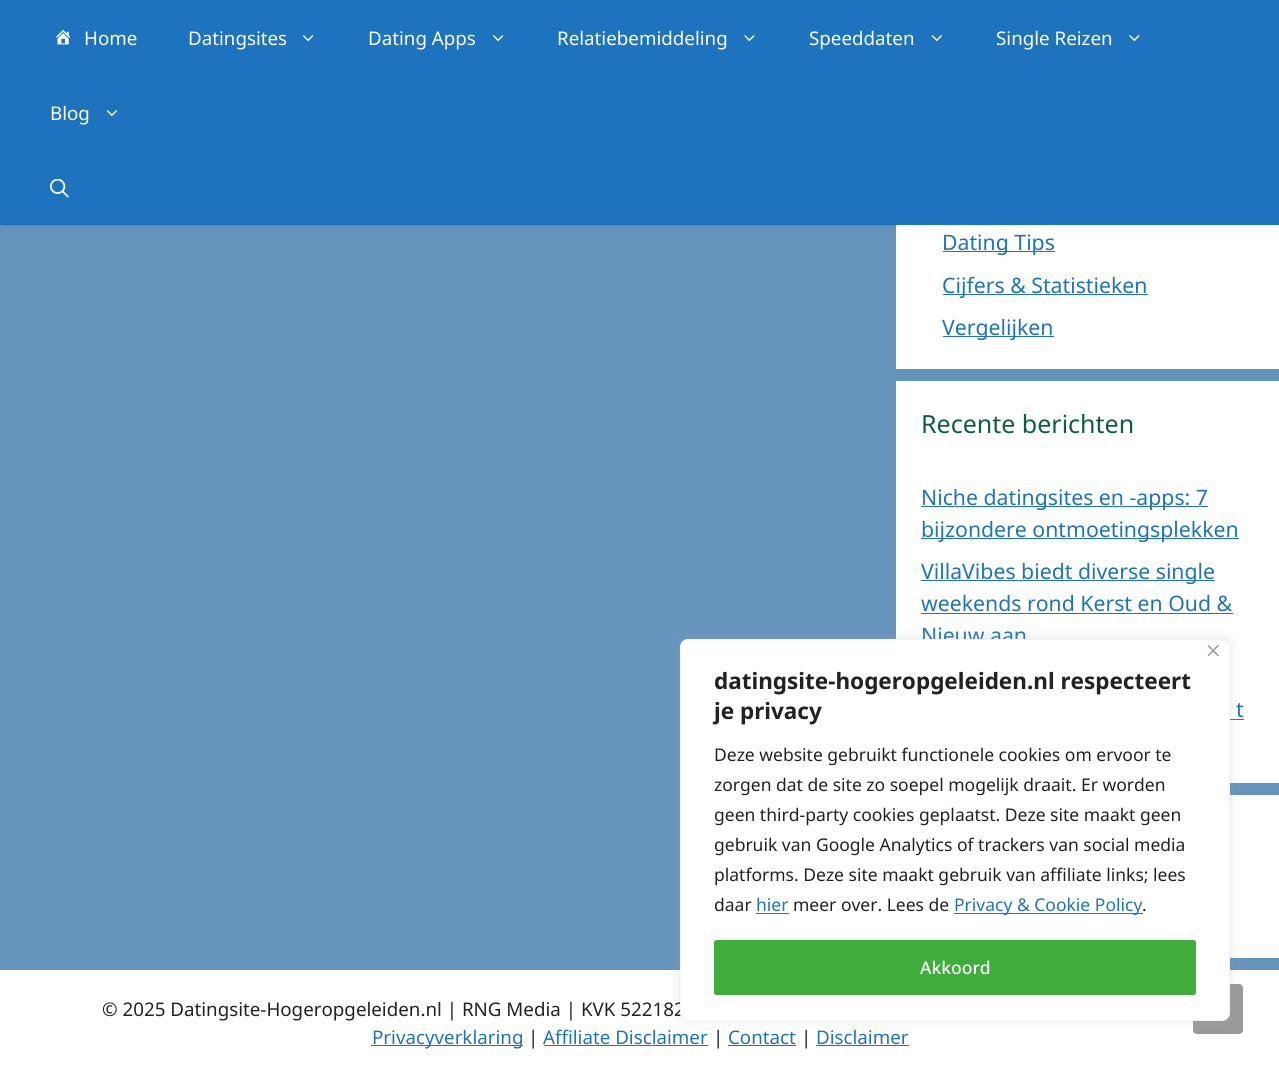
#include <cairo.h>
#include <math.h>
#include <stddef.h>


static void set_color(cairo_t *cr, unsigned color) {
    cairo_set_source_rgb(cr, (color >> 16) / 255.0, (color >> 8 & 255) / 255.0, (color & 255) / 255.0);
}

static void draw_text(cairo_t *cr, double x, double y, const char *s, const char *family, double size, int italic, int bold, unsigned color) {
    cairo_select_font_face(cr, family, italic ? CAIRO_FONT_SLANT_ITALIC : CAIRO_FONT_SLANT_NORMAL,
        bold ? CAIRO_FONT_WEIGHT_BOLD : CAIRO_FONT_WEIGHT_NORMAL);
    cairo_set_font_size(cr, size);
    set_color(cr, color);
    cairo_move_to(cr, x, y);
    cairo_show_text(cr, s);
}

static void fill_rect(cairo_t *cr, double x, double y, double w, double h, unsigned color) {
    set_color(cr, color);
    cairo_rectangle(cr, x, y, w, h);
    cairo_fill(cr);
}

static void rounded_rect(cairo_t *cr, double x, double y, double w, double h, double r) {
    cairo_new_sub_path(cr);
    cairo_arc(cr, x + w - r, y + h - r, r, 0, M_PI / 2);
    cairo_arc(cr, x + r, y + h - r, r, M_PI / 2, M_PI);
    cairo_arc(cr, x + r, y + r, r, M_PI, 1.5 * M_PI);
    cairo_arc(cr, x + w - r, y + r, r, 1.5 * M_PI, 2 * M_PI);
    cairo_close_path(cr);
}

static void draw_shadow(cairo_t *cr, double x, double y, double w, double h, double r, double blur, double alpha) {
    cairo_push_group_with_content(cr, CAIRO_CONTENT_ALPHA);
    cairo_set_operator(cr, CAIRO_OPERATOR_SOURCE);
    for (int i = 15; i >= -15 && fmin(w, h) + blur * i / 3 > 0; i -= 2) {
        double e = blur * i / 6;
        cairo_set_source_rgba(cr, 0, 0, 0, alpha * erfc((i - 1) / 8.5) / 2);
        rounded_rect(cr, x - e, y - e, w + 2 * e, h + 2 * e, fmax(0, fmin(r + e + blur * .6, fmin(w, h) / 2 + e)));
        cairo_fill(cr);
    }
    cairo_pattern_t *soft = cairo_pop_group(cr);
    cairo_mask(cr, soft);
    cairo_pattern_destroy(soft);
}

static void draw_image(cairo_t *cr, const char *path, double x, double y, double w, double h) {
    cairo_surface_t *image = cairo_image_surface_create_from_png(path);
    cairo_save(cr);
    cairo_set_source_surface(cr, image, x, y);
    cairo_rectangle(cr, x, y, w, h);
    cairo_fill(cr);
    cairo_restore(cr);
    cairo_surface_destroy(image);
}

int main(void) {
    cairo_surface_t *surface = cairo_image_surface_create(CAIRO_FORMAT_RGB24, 1279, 1071);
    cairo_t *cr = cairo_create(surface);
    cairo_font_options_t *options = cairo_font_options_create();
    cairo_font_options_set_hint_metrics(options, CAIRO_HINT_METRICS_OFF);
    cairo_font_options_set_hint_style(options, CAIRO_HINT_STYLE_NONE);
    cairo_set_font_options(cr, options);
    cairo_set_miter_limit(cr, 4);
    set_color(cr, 0x6493BC);
    cairo_paint(cr);
    fill_rect(cr, 896, 225, 383, 144, 0xFFFFFF);
    set_color(cr, 0x000000);
    draw_shadow(cr, 3, 5, 1275, 220, 0, 1, 0.2);
    fill_rect(cr, 0, 0, 1279, 225, 0x1E73BE);
    draw_image(cr, "assets/img1.png", 56, 29, 15, 16);
    draw_text(cr, 84, 45, "Home", "Noto Sans", 18.75, 0, 0, 0xFFFFFF);
    draw_text(cr, 188, 45, "Datingsites", "Noto Sans", 18.75, 0, 0, 0xFFFFFF);
    draw_image(cr, "assets/img2.png", 303, 35, 11, 7);
    draw_text(cr, 368, 45, "Dating Apps", "Noto Sans", 18.75, 0, 0, 0xFFFFFF);
    draw_image(cr, "assets/img2.png", 493, 35, 11, 7);
    draw_text(cr, 557, 45, "Relatiebemiddeling", "Noto Sans", 18.75, 0, 0, 0xFFFFFF);
    draw_image(cr, "assets/img3.png", 744, 35, 11, 7);
    draw_text(cr, 809, 45, "Speeddaten", "Noto Sans", 18.75, 0, 0, 0xFFFFFF);
    draw_image(cr, "assets/img4.png", 931, 35, 11, 7);
    draw_text(cr, 996, 45, "Single Reizen", "Noto Sans", 18.75, 0, 0, 0xFFFFFF);
    draw_image(cr, "assets/img3.png", 1129, 35, 11, 7);
    draw_text(cr, 50, 120, "Blog", "Noto Sans", 18.75, 0, 0, 0xFFFFFF);
    draw_image(cr, "assets/img4.png", 106, 110, 11, 7);
    draw_image(cr, "assets/img5.png", 50, 179, 19, 19);
    fill_rect(cr, 943, 251, 112, 1, 0x1E73BE);
    draw_text(cr, 942, 250, "Dating Tips", "Noto Sans", 21.25, 0, 0, 0x1E73BE);
    fill_rect(cr, 943, 294, 205, 1, 0x1E73BE);
    draw_text(cr, 942, 293, "Cijfers & Statistieken", "Noto Sans", 21.25, 0, 0, 0x1E73BE);
    fill_rect(cr, 943, 336, 111, 1, 0x1E73BE);
    draw_text(cr, 942, 335, "Vergelijken", "Noto Sans", 21.25, 0, 0, 0x1E73BE);
    fill_rect(cr, 896, 381, 383, 402, 0xFFFFFF);
    draw_text(cr, 921, 433, "Recente berichten", "Noto Sans", 25, 0, 0, 0x0F5D43);
    fill_rect(cr, 921, 506, 287, 1, 0x1E73BE);
    draw_text(cr, 921, 505, "Niche datingsites en -apps: 7", "Noto Sans", 21.25, 0, 0, 0x1E73BE);
    fill_rect(cr, 921, 538, 318, 1, 0x1E73BE);
    draw_text(cr, 921, 537, "bijzondere ontmoetingsplekken", "Noto Sans", 21.25, 0, 0, 0x1E73BE);
    fill_rect(cr, 921, 580, 294, 1, 0x1E73BE);
    draw_text(cr, 921, 579, "VillaVibes biedt diverse single", "Noto Sans", 21.25, 0, 0, 0x1E73BE);
    draw_text(cr, 921, 611, "weekends rond Kerst en Oud &", "Noto Sans", 21.25, 0, 0, 0x1E73BE);
    fill_rect(cr, 921, 613, 312, 1, 0x1E73BE);
    draw_text(cr, 921, 643, "Nieuw aan", "Noto Sans", 21.25, 0, 0, 0x1E73BE);
    draw_text(cr, 1236, 717, "t", "Noto Sans", 21.25, 0, 0, 0x1E73BE);
    fill_rect(cr, 1230, 719, 14, 1, 0x1E73BE);
    fill_rect(cr, 1230, 795, 49, 163, 0xFFFFFF);
    fill_rect(cr, 0, 970, 1279, 101, 0xFFFFFF);
    set_color(cr, 0x999999);
    rounded_rect(cr, 1193, 984, 50, 50, 4);
    cairo_fill(cr);
    set_color(cr, 0xACABAB);
    draw_shadow(cr, 680, 638, 550, 382, 8, 6, 0.3);
    draw_text(cr, 102, 1016, "© 2025 Datingsite-Hogeropgeleiden.nl | RNG Media | KVK 522182", "Noto Sans", 18.75, 0, 0, 0x222222);
    set_color(cr, 0xFFFFFF);
    rounded_rect(cr, 680.5, 639.5, 549, 381, 7.5);
    cairo_fill_preserve(cr);
    set_color(cr, 0xF4F4F4);
    cairo_set_line_width(cr, 1);
    cairo_stroke(cr);
    draw_image(cr, "assets/img6.png", 1208, 645, 11, 11);
    draw_text(cr, 714, 689, "datingsite-hogeropgeleiden.nl respecteert", "Noto Sans", 22.5, 0, 1, 0x222222);
    draw_text(cr, 714, 719, "je privacy", "Noto Sans", 22.5, 0, 1, 0x222222);
    draw_text(cr, 714, 761, "Deze website gebruikt functionele cookies om ervoor te", "Noto Sans", 17.5, 0, 0, 0x222222);
    draw_text(cr, 714, 791, "zorgen dat de site zo soepel mogelijk draait. Er worden", "Noto Sans", 17.5, 0, 0, 0x222222);
    draw_text(cr, 714, 821, "geen third-party cookies geplaatst. Deze site maakt geen", "Noto Sans", 17.5, 0, 0, 0x222222);
    draw_text(cr, 714, 851, "gebruik van Google Analytics of trackers van social media", "Noto Sans", 17.5, 0, 0, 0x222222);
    draw_text(cr, 714, 881, "platforms. Deze site maakt gebruik van affiliate links; lees", "Noto Sans", 17.5, 0, 0, 0x222222);
    draw_text(cr, 714, 911, "daar", "Noto Sans", 17.5, 0, 0, 0x222222);
    draw_text(cr, 756, 911, "hier", "Noto Sans", 17.5, 0, 0, 0x1E73BE);
    fill_rect(cr, 756, 913, 33, 1, 0x1E73BE);
    draw_text(cr, 793, 911, "meer over. Lees de", "Noto Sans", 17.5, 0, 0, 0x222222);
    fill_rect(cr, 954, 913, 189, 1, 0x1E73BE);
    draw_text(cr, 954, 911, "Privacy & Cookie Policy", "Noto Sans", 17.5, 0, 0, 0x1E73BE);
    draw_text(cr, 1142, 911, ".", "Noto Sans", 17.5, 0, 0, 0x222222);
    set_color(cr, 0x40AC3C);
    rounded_rect(cr, 715.5, 941.5, 479, 52, 1);
    cairo_fill_preserve(cr);
    cairo_set_line_width(cr, 3);
    cairo_stroke(cr);
    draw_text(cr, 920, 974, "Akkoord", "Noto Sans Medium", 17.5, 0, 0, 0xFFFFFF);
    fill_rect(cr, 371, 1045, 152, 1, 0x1E73BE);
    draw_text(cr, 372, 1044, "Privacyverklaring", "Noto Sans", 18.75, 0, 0, 0x1E73BE);
    draw_text(cr, 528, 1044, "|", "Noto Sans", 18.75, 0, 0, 0x222222);
    draw_text(cr, 543, 1044, "Affiliate Disclaimer", "Noto Sans", 18.75, 0, 0, 0x1E73BE);
    fill_rect(cr, 544, 1045, 164, 1, 0x1E73BE);
    draw_text(cr, 713, 1044, "|", "Noto Sans", 18.75, 0, 0, 0x222222);
    draw_text(cr, 728, 1044, "Contact", "Noto Sans", 18.75, 0, 0, 0x1E73BE);
    fill_rect(cr, 728, 1045, 68, 1, 0x1E73BE);
    draw_text(cr, 801, 1044, "|", "Noto Sans", 18.75, 0, 0, 0x222222);
    draw_text(cr, 816, 1044, "Disclaimer", "Noto Sans", 18.75, 0, 0, 0x1E73BE);
    fill_rect(cr, 816, 1045, 93, 1, 0x1E73BE);
    cairo_surface_write_to_png(surface, "output.png");
    cairo_font_options_destroy(options);
    cairo_destroy(cr);
    cairo_surface_destroy(surface);
    return 0;
}
